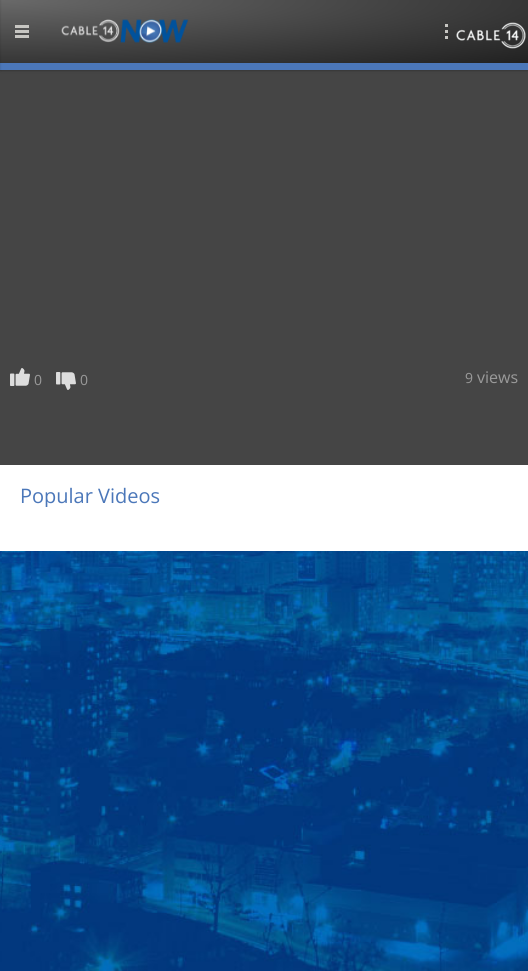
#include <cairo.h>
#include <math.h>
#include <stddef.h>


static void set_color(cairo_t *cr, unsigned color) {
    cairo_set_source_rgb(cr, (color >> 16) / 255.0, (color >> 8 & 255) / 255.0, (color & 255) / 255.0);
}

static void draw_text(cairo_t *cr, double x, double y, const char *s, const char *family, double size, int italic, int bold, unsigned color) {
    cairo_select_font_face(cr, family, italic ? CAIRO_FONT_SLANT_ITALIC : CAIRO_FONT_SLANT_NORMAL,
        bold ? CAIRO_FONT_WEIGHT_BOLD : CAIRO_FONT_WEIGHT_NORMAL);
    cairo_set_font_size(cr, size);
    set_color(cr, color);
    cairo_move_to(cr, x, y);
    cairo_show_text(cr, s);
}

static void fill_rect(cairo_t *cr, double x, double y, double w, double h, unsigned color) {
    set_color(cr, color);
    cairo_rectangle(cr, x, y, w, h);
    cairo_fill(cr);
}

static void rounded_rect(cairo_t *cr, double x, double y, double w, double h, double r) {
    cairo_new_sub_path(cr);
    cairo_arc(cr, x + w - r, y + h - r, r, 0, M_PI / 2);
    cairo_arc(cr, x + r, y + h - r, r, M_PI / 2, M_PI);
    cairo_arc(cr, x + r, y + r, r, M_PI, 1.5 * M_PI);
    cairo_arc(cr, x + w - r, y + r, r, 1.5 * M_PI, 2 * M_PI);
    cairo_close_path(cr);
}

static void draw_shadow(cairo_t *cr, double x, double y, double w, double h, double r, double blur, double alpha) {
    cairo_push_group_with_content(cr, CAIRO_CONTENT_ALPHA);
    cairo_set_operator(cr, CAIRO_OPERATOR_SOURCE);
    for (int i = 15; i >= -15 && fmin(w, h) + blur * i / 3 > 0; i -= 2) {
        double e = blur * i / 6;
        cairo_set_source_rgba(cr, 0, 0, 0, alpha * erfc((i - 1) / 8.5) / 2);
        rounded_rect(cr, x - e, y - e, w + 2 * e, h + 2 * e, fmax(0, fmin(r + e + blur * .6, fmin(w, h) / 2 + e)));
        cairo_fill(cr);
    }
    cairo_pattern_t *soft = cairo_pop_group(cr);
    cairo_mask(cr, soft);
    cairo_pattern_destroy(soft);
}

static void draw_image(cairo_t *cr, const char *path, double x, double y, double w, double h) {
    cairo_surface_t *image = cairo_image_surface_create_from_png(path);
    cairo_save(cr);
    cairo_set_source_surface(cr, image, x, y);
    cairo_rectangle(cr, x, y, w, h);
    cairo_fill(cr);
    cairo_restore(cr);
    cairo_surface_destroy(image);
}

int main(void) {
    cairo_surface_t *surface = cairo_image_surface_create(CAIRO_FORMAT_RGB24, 528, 971);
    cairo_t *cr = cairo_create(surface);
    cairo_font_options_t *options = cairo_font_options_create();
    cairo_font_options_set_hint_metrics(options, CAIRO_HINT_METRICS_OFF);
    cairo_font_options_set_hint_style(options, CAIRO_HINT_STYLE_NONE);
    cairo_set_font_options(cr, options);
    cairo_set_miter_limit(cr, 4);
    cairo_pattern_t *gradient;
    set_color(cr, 0xFFFFFF);
    cairo_paint(cr);
    draw_image(cr, "assets/img1.png", 0, 551, 528, 420);
    fill_rect(cr, 0, 70, 528, 395, 0x454545);
    set_color(cr, 0x000000);
    draw_shadow(cr, 0, 0, 528, 70, 0, 1.5, 0.4);
    gradient = cairo_pattern_create_radial(0, 0, 0, 0, 0, 1);
    cairo_pattern_set_matrix(gradient, &(cairo_matrix_t){1.0 / 747, 0, 0, 1.0 / 89, -1.0 * 0 / 747, -1.0 * 0 / 89});
    cairo_pattern_add_color_stop_rgba(gradient, 0, 0.412, 0.412, 0.412, 1);
    cairo_pattern_add_color_stop_rgba(gradient, 1, 0.129, 0.129, 0.129, 1);
    cairo_set_source(cr, gradient);
    cairo_pattern_destroy(gradient);
    cairo_rectangle(cr, 0, 0, 528, 63);
    cairo_fill(cr);
    fill_rect(cr, 0, 63, 528, 7, 0x4B77B9);
    fill_rect(cr, 15, 25, 14, 3, 0xC7C6C2);
    fill_rect(cr, 15, 30, 14, 3, 0xC7C6C2);
    fill_rect(cr, 15, 35, 14, 3, 0xC7C6C2);
    draw_image(cr, "assets/img2.png", 61, 19, 128, 24);
    fill_rect(cr, 445, 24, 3, 3, 0xC7C6C2);
    fill_rect(cr, 445, 30, 3, 3, 0xC7C6C2);
    fill_rect(cr, 445, 36, 3, 3, 0xC7C6C2);
    draw_image(cr, "assets/img3.png", 456, 22, 70, 27);
    set_color(cr, 0x000000);
    draw_shadow(cr, -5, 0, 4, 70, 0, 1.5, 0.4);
    draw_image(cr, "assets/img4.png", 10, 368, 20, 18);
    draw_text(cr, 34, 385, "0", "Open Sans", 14, 0, 0, 0x9A9A9A);
    draw_image(cr, "assets/img5.png", 56, 372, 20, 18);
    draw_text(cr, 80, 385, "0", "Open Sans", 14, 0, 0, 0x9A9A9A);
    draw_text(cr, 465, 383, "9", "Open Sans", 14, 0, 0, 0x9A9A9A);
    draw_text(cr, 477, 383, "views", "Open Sans", 16, 0, 0, 0x9A9A9A);
    draw_text(cr, 20, 503, "Popular Videos", "Open Sans", 20, 0, 0, 0x4B77B9);
    fill_rect(cr, 45, 507, 3, 1, 0xFFFFFF);
    cairo_surface_write_to_png(surface, "output.png");
    cairo_font_options_destroy(options);
    cairo_destroy(cr);
    cairo_surface_destroy(surface);
    return 0;
}
